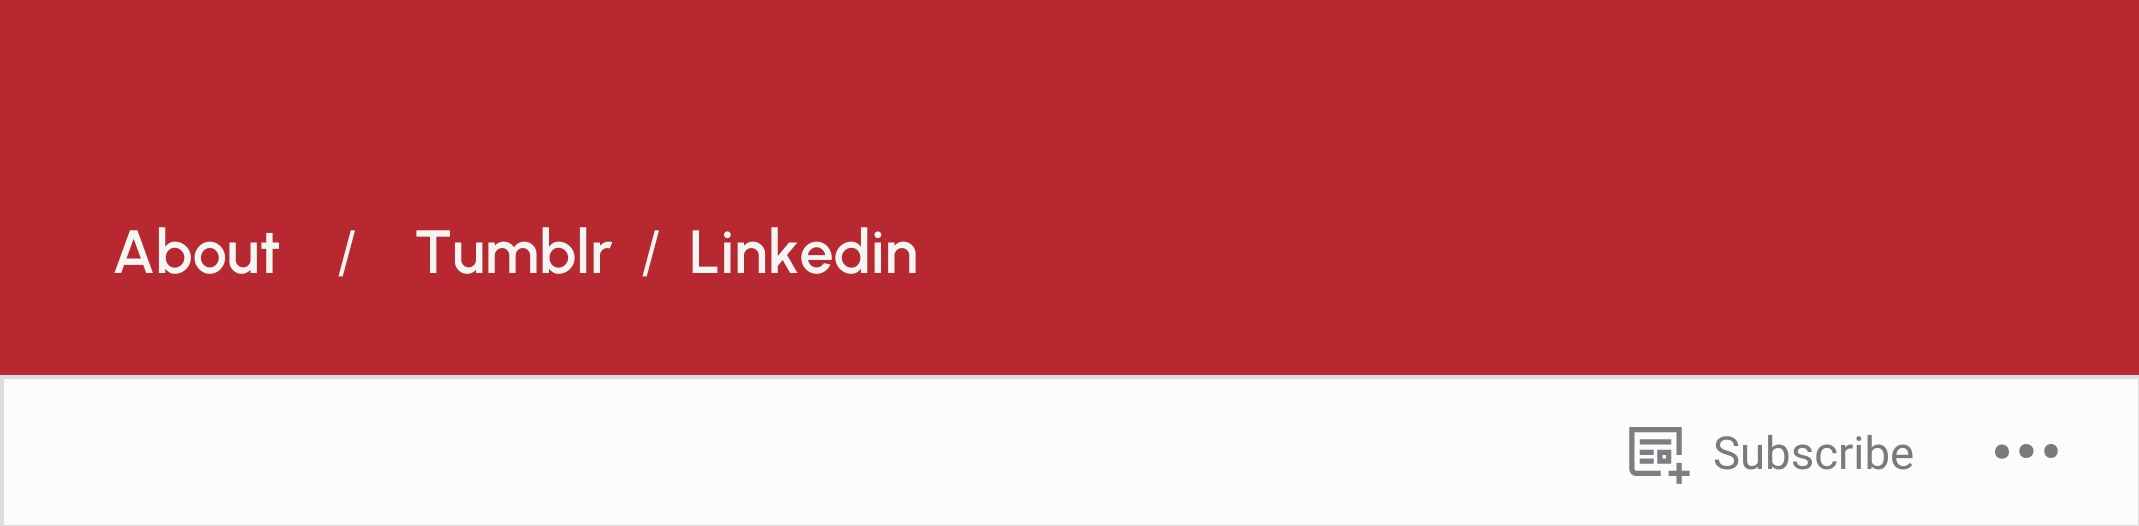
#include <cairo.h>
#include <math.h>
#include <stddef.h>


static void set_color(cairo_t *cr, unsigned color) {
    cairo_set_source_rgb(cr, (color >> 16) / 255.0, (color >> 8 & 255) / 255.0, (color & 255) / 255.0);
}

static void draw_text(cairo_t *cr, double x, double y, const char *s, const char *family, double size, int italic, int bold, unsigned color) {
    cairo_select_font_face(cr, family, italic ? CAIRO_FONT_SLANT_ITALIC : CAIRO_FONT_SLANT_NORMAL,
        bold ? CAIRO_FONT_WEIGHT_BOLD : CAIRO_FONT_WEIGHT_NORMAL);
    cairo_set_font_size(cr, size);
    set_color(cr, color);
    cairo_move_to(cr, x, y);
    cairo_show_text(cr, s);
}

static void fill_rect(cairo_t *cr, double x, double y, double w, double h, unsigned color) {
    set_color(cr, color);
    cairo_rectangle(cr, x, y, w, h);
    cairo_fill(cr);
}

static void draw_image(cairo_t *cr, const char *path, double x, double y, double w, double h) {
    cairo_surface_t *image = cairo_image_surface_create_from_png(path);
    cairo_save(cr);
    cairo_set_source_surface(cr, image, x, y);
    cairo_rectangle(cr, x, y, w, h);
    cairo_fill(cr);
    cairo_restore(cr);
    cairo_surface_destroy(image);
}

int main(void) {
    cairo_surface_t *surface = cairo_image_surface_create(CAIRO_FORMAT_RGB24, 2139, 526);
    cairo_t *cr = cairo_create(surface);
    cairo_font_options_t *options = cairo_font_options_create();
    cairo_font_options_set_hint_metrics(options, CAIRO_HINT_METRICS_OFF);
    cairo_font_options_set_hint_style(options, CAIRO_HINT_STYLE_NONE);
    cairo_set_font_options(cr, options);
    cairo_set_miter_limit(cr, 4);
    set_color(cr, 0xB72831);
    cairo_paint(cr);
    fill_rect(cr, 0, 375, 2139, 151, 0xFEFBFB);
    draw_text(cr, 112, 273, "About", "Urbanist SemiBold", 61, 0, 0, 0xF4F6F3);
    draw_text(cr, 336, 273, "/", "Urbanist", 61, 0, 0, 0xF4F6F3);
    draw_text(cr, 414, 273, "Tumblr", "Urbanist SemiBold", 61, 0, 0, 0xF4F6F3);
    draw_text(cr, 640, 273, "/", "Urbanist", 61, 0, 0, 0xF4F6F3);
    draw_text(cr, 689, 273, "Linkedin", "Urbanist SemiBold", 61, 0, 0, 0xF4F6F3);
    cairo_rectangle(cr, 2, 377, 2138, 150);
    cairo_set_source_rgba(cr, 0.863, 0.863, 0.871, 0.98);
    cairo_set_line_width(cr, 4);
    cairo_stroke(cr);
    draw_image(cr, "assets/img1.png", 1629, 427, 61, 57);
    draw_text(cr, 1713, 469, "Subscribe", "Roboto", 45.5, 0, 0, 0x797A80);
    cairo_new_path(cr);
    cairo_move_to(cr, 2009, 452);
    cairo_curve_to(cr, 2009, 461, 1995, 461, 1995, 452);
    cairo_curve_to(cr, 1995, 442, 2009, 442, 2009, 452);
    cairo_close_path(cr);
    cairo_move_to(cr, 2051, 444);
    cairo_curve_to(cr, 2042, 444, 2042, 458, 2051, 458);
    cairo_curve_to(cr, 2060, 458, 2060, 444, 2051, 444);
    cairo_close_path(cr);
    cairo_move_to(cr, 2026, 444);
    cairo_curve_to(cr, 2017, 444, 2017, 458, 2026, 458);
    cairo_curve_to(cr, 2036, 458, 2036, 444, 2026, 444);
    cairo_close_path(cr);
    cairo_fill(cr);
    cairo_surface_write_to_png(surface, "output.png");
    cairo_font_options_destroy(options);
    cairo_destroy(cr);
    cairo_surface_destroy(surface);
    return 0;
}
